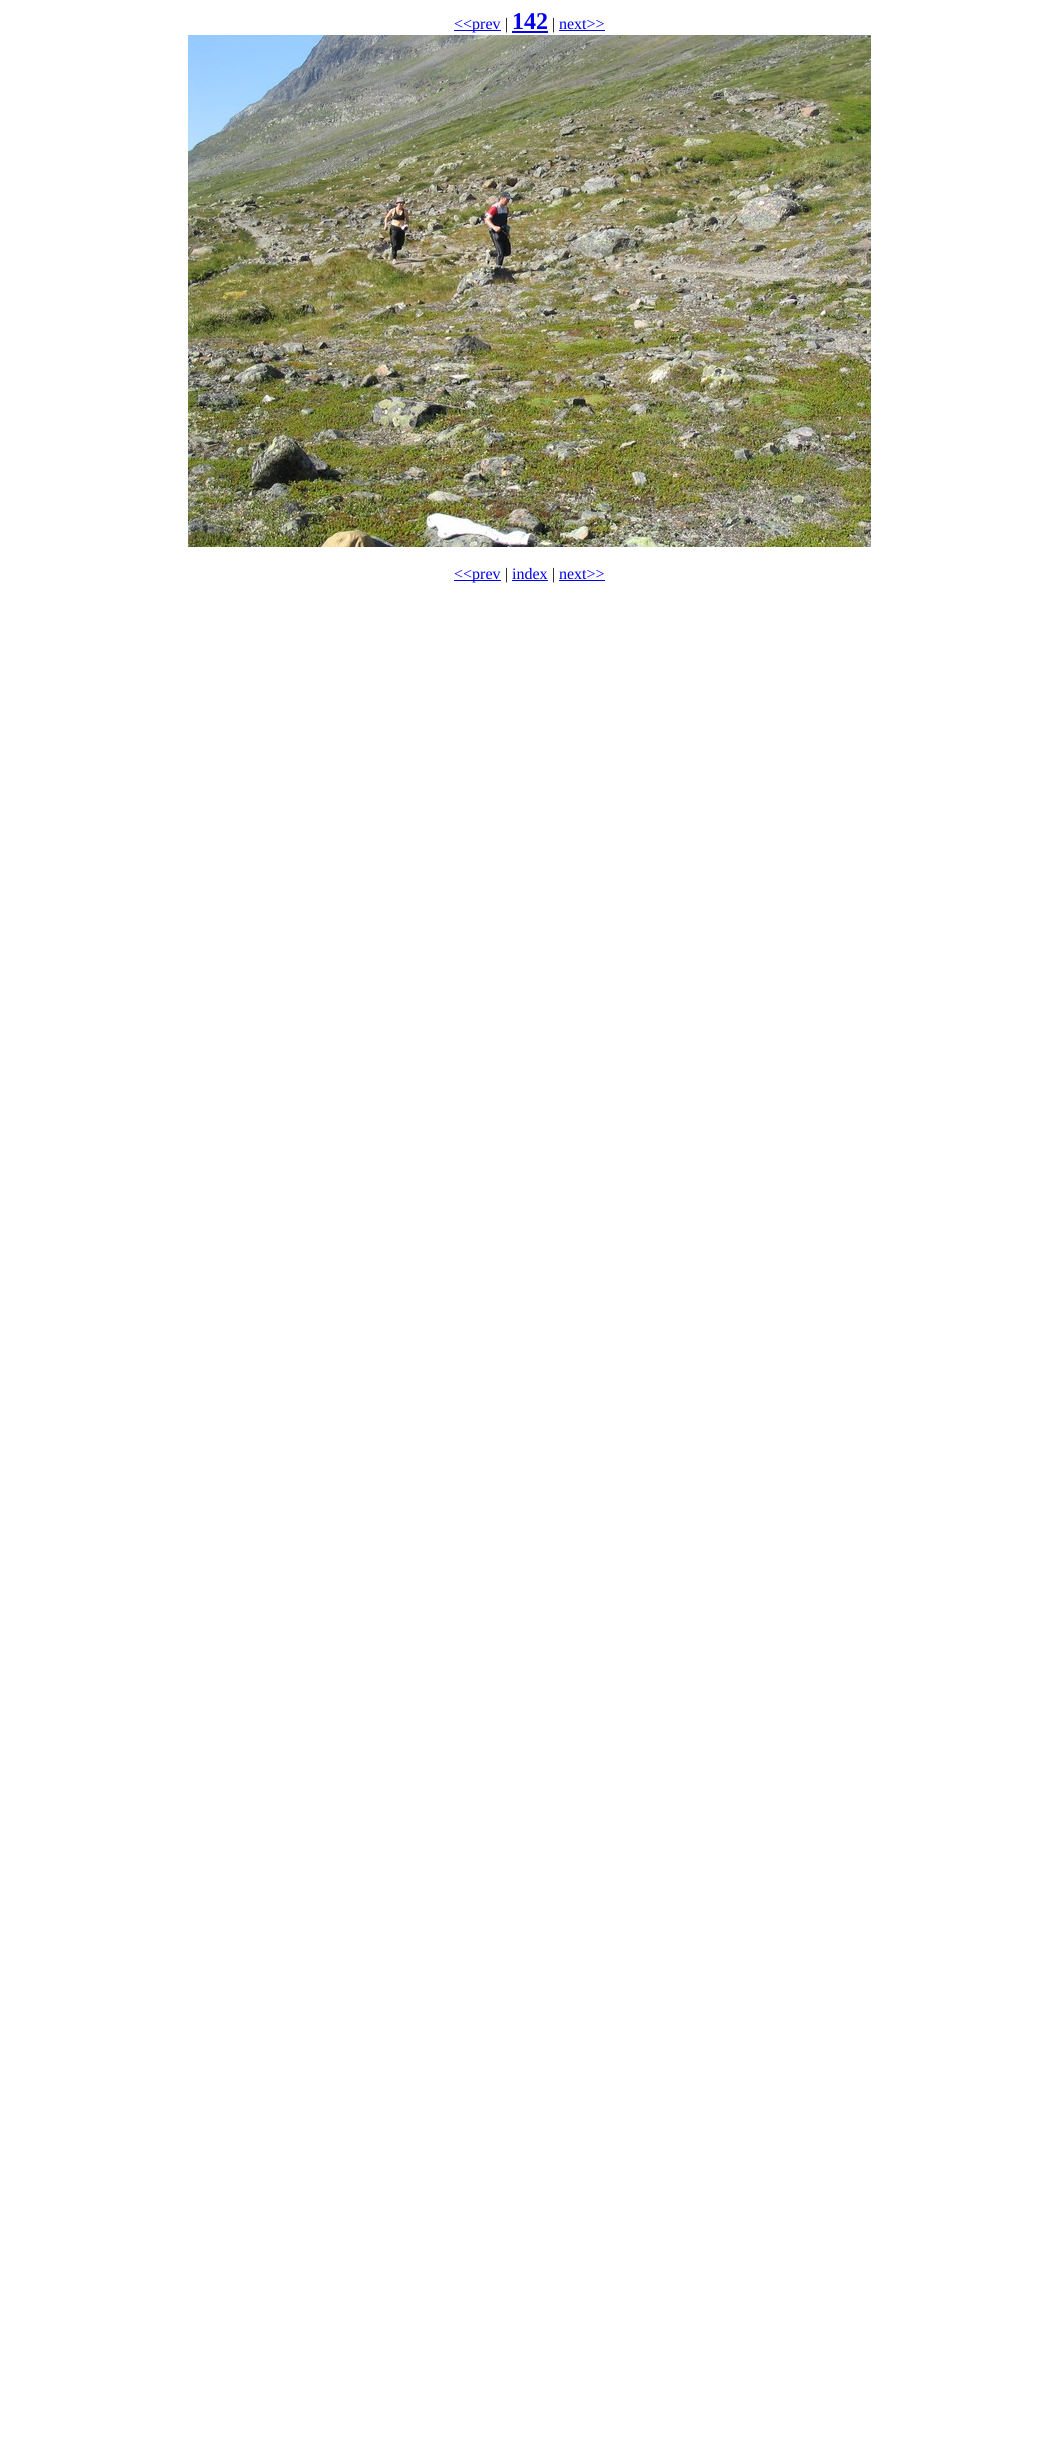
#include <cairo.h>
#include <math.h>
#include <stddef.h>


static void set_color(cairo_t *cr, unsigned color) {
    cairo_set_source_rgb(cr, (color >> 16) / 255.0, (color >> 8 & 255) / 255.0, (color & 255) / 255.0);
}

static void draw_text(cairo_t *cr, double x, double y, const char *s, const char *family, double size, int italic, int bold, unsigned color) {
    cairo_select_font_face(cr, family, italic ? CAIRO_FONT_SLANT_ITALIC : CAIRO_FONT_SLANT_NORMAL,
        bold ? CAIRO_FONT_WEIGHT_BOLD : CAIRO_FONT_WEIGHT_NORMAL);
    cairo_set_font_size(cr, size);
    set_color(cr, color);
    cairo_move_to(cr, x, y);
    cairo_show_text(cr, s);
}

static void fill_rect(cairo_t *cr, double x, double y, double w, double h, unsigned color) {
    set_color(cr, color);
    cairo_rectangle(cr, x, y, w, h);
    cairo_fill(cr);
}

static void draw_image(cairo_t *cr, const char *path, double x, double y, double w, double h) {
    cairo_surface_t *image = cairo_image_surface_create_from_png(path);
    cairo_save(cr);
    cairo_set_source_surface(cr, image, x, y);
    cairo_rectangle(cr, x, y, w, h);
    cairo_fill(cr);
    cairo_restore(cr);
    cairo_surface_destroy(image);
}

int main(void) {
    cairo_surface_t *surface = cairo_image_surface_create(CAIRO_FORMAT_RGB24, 1059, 2463);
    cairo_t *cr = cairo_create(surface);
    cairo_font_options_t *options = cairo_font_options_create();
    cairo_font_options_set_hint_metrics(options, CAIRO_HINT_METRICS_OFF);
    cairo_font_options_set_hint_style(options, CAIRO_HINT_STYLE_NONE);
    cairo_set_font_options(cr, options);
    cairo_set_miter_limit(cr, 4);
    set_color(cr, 0xFFFFFF);
    cairo_paint(cr);
    fill_rect(cr, 454, 30, 47, 1, 0x0000EE);
    draw_text(cr, 454, 29, "<<prev", "Liberation Serif", 16, 0, 0, 0x0000EE);
    draw_text(cr, 505, 29, "|", "Liberation Serif", 16, 0, 0, 0x000000);
    draw_text(cr, 512, 29, "142", "Liberation Serif", 24, 0, 1, 0x0000EE);
    fill_rect(cr, 512, 31, 36, 2, 0x0000EE);
    draw_text(cr, 552, 29, "|", "Liberation Serif", 16, 0, 0, 0x000000);
    draw_text(cr, 559, 29, "next>>", "Liberation Serif", 16, 0, 0, 0x0000EE);
    fill_rect(cr, 559, 30, 46, 1, 0x0000EE);
    draw_image(cr, "assets/img1.png", 188, 35, 683, 512);
    fill_rect(cr, 454, 580, 47, 1, 0x0000EE);
    draw_text(cr, 454, 579, "<<prev", "Liberation Serif", 16, 0, 0, 0x0000EE);
    draw_text(cr, 505, 579, "|", "Liberation Serif", 16, 0, 0, 0x000000);
    draw_text(cr, 512, 579, "index", "Liberation Serif", 16, 0, 0, 0x0000EE);
    fill_rect(cr, 512, 580, 36, 1, 0x0000EE);
    draw_text(cr, 552, 579, "|", "Liberation Serif", 16, 0, 0, 0x000000);
    draw_text(cr, 559, 579, "next>>", "Liberation Serif", 16, 0, 0, 0x0000EE);
    fill_rect(cr, 559, 580, 46, 1, 0x0000EE);
    cairo_surface_write_to_png(surface, "output.png");
    cairo_font_options_destroy(options);
    cairo_destroy(cr);
    cairo_surface_destroy(surface);
    return 0;
}
